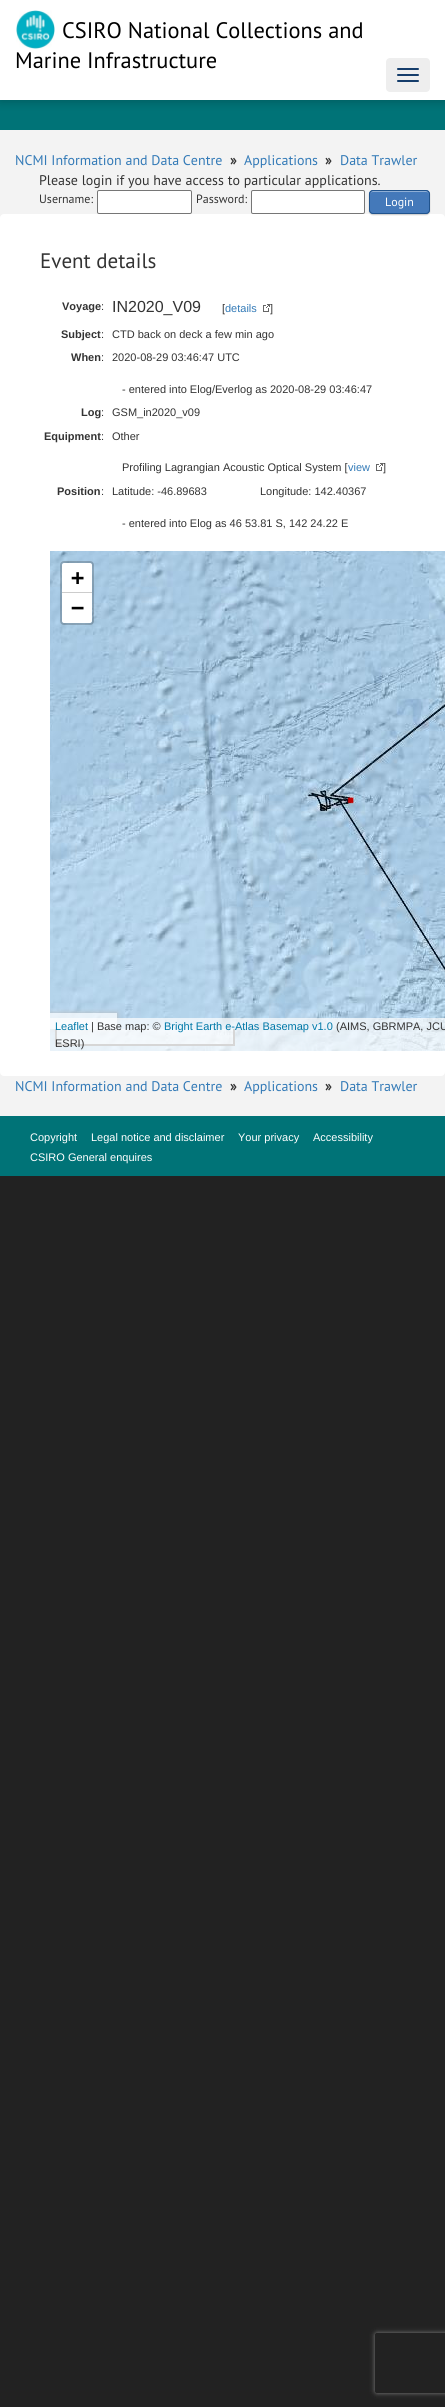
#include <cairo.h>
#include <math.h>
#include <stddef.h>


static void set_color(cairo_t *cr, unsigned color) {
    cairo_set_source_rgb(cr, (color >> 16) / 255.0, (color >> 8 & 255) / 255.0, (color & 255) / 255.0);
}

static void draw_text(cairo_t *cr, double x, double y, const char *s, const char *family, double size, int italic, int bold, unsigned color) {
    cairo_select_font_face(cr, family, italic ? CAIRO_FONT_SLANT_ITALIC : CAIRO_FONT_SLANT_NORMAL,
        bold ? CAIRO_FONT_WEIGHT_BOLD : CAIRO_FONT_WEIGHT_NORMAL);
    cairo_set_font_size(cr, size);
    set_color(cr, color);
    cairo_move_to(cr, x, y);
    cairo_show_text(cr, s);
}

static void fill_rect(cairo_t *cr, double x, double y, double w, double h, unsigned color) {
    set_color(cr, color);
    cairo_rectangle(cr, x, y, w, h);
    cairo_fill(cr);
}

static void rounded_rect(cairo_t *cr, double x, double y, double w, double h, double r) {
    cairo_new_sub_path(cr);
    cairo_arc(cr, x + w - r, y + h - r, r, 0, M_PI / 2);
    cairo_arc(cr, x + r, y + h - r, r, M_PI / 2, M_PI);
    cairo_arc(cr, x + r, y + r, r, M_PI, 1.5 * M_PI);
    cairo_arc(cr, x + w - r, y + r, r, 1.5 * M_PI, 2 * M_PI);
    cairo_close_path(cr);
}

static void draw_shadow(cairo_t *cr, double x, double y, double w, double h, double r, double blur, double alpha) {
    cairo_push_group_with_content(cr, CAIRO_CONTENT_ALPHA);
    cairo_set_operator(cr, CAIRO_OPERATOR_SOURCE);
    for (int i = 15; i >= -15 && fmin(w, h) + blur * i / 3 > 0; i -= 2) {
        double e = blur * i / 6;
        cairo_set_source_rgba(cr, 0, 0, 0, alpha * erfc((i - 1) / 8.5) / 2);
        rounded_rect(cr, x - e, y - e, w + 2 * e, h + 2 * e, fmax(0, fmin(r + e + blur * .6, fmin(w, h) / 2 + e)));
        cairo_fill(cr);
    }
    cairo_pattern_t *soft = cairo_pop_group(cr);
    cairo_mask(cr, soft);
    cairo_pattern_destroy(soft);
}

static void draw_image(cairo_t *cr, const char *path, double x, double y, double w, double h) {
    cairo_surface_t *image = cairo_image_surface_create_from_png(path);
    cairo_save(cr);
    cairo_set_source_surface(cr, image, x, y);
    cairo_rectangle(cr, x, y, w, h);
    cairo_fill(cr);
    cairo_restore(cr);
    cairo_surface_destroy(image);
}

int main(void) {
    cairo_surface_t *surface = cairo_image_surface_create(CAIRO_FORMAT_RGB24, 445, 2407);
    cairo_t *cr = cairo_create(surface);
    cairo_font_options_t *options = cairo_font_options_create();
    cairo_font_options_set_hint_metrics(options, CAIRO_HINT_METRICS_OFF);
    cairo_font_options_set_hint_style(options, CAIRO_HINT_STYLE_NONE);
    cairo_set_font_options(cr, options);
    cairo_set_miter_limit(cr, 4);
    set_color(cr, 0x222222);
    cairo_paint(cr);
    fill_rect(cr, 0, 130, 445, 986, 0xF3F3F3);
    fill_rect(cr, 0, 100, 445, 30, 0x007377);
    set_color(cr, 0x000000);
    draw_shadow(cr, 0, 2, 445, 100, 0, 5, 0.2);
    fill_rect(cr, 0, 0, 445, 100, 0xFFFFFF);
    draw_image(cr, "assets/img1.png", 16, 10, 39, 39);
    draw_text(cr, 62, 38, "CSIRO National Collections and", "PT Sans", 22.4, 0, 0, 0x000000);
    draw_text(cr, 15, 68, "Marine Infrastructure", "PT Sans", 22.4, 0, 0, 0x000000);
    set_color(cr, 0xEEEEEE);
    rounded_rect(cr, 386, 58, 44, 34, 4);
    cairo_fill(cr);
    set_color(cr, 0x153D6B);
    rounded_rect(cr, 397, 68, 22, 2, 1);
    cairo_fill(cr);
    rounded_rect(cr, 397, 74, 22, 2, 1);
    cairo_fill(cr);
    rounded_rect(cr, 397, 80, 22, 2, 1);
    cairo_fill(cr);
    draw_text(cr, 15, 165, "NCMI Information and Data Centre", "PT Sans", 14, 0, 0, 0x337AB7);
    draw_text(cr, 230, 165, "»", "PT Sans", 14, 0, 1, 0x333333);
    draw_text(cr, 244, 165, "Applications", "PT Sans", 14, 0, 0, 0x337AB7);
    draw_text(cr, 325, 165, "»", "PT Sans", 14, 0, 1, 0x333333);
    draw_text(cr, 340, 165, "Data Trawler", "PT Sans", 14, 0, 0, 0x337AB7);
    draw_text(cr, 39, 185, "Please login if you have access to particular applications.", "PT Sans", 14, 0, 0, 0x333333);
    draw_text(cr, 39, 203, "Username:", "PT Sans", 12, 0, 0, 0x333333);
    set_color(cr, 0xFFFFFF);
    rounded_rect(cr, 97.5, 190.5, 94, 23, 1.5);
    cairo_fill_preserve(cr);
    set_color(cr, 0x767676);
    cairo_set_line_width(cr, 1);
    cairo_stroke(cr);
    draw_text(cr, 196, 203, "Password:", "PT Sans", 12, 0, 0, 0x333333);
    set_color(cr, 0xFFFFFF);
    rounded_rect(cr, 251.5, 190.5, 113, 23, 1.5);
    cairo_fill_preserve(cr);
    set_color(cr, 0x767676);
    cairo_stroke(cr);
    set_color(cr, 0xFFFFFF);
    rounded_rect(cr, 0, 214, 445, 862, 4);
    cairo_fill(cr);
    set_color(cr, 0x000000);
    draw_shadow(cr, 369, 191, 61, 24, 4, 0.5, 0.2);
    set_color(cr, 0x4479BA);
    rounded_rect(cr, 369, 190, 61, 24, 4);
    cairo_fill(cr);
    set_color(cr, 0x8FAFD6);
    cairo_new_path(cr);
    cairo_move_to(cr, 373, 192);
    cairo_line_to(cr, 426, 192);
    cairo_curve_to(cr, 428, 192, 429, 193, 429, 195);
    cairo_curve_to(cr, 429, 189, 422, 191, 417, 191);
    cairo_line_to(cr, 382, 191);
    cairo_curve_to(cr, 377, 191, 370, 189, 370, 195);
    cairo_curve_to(cr, 370, 193, 371, 192, 373, 192);
    cairo_close_path(cr);
    cairo_fill(cr);
    rounded_rect(cr, 369.5, 190.5, 60, 23, 3.5);
    set_color(cr, 0x20538D);
    cairo_stroke(cr);
    draw_text(cr, 385, 206, "Login", "PT Sans", 12, 0, 0, 0xFFFFFF);
    cairo_save(cr);
    cairo_set_fill_rule(cr, CAIRO_FILL_RULE_EVEN_ODD);
    cairo_new_path(cr);
    cairo_move_to(cr, 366, 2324);
    cairo_line_to(cr, 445, 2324);
    cairo_line_to(cr, 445, 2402);
    cairo_line_to(cr, 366, 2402);
    cairo_close_path(cr);
    cairo_move_to(cr, 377, 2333);
    cairo_line_to(cr, 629, 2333);
    cairo_curve_to(cr, 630, 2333, 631, 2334, 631, 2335);
    cairo_line_to(cr, 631, 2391);
    cairo_curve_to(cr, 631, 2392, 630, 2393, 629, 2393);
    cairo_line_to(cr, 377, 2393);
    cairo_curve_to(cr, 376, 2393, 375, 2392, 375, 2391);
    cairo_line_to(cr, 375, 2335);
    cairo_curve_to(cr, 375, 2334, 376, 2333, 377, 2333);
    cairo_close_path(cr);
    cairo_clip(cr);
    set_color(cr, 0x808080);
    draw_shadow(cr, 375, 2333, 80, 60, 2, 2.5, 1);
    cairo_restore(cr);
    draw_text(cr, 40, 268, "Event details", "PT Sans", 21, 0, 0, 0x333333);
    draw_text(cr, 62, 310, "Voyage", "Liberation Sans", 11, 0, 1, 0x333333);
    draw_text(cr, 101, 310, ":", "Liberation Sans", 11, 0, 0, 0x333333);
    draw_text(cr, 112, 312, "IN2020_V09", "Liberation Sans", 16, 0, 0, 0x333333);
    draw_text(cr, 222, 312, "[", "Liberation Sans", 11, 0, 0, 0x333333);
    draw_text(cr, 225, 312, "details", "Liberation Sans", 11, 0, 0, 0x337AB7);
    draw_image(cr, "assets/img2.png", 263, 304, 7, 8);
    draw_text(cr, 270, 312, "]", "Liberation Sans", 11, 0, 0, 0x333333);
    draw_text(cr, 61, 338, "Subject", "Liberation Sans", 11, 0, 1, 0x333333);
    draw_text(cr, 101, 338, ":", "Liberation Sans", 11, 0, 0, 0x333333);
    draw_text(cr, 112, 338, "CTD back on deck a few min ago", "Liberation Sans", 11, 0, 0, 0x333333);
    draw_text(cr, 71, 361, "When", "Liberation Sans", 11, 0, 1, 0x333333);
    draw_text(cr, 101, 361, ":", "Liberation Sans", 11, 0, 0, 0x333333);
    draw_text(cr, 112, 361, "2020-08-29 03:46:47 UTC", "Liberation Sans", 11, 0, 0, 0x333333);
    draw_text(cr, 122, 393, "- entered into Elog/Everlog as 2020-08-29 03:46:47", "Liberation Sans", 11, 0, 0, 0x333333);
    draw_text(cr, 81, 416, "Log", "Liberation Sans", 11, 0, 1, 0x333333);
    draw_text(cr, 101, 416, ":", "Liberation Sans", 11, 0, 0, 0x333333);
    draw_text(cr, 112, 416, "GSM_in2020_v09", "Liberation Sans", 11, 0, 0, 0x333333);
    draw_text(cr, 44, 440, "Equipment", "Liberation Sans", 11, 0, 1, 0x333333);
    draw_text(cr, 101, 440, ":", "Liberation Sans", 11, 0, 0, 0x333333);
    draw_text(cr, 112, 440, "Other", "Liberation Sans", 11, 0, 0, 0x333333);
    draw_text(cr, 122, 471, "Profiling Lagrangian Acoustic Optical System [", "Liberation Sans", 11, 0, 0, 0x333333);
    draw_text(cr, 348, 471, "view", "Liberation Sans", 11, 0, 0, 0x337AB7);
    draw_image(cr, "assets/img2.png", 376, 463, 7, 8);
    draw_text(cr, 383, 471, "]", "Liberation Sans", 11, 0, 0, 0x333333);
    draw_text(cr, 57, 495, "Position", "Liberation Sans", 11, 0, 1, 0x333333);
    draw_text(cr, 101, 495, ":", "Liberation Sans", 11, 0, 0, 0x333333);
    draw_text(cr, 112, 495, "Latitude: -46.89683", "Liberation Sans", 11, 0, 0, 0x333333);
    draw_text(cr, 260, 495, "Longitude: 142.40367", "Liberation Sans", 11, 0, 0, 0x333333);
    draw_text(cr, 122, 527, "- entered into Elog as 46 53.81 S, 142 24.22 E", "Liberation Sans", 11, 0, 0, 0x333333);
    draw_image(cr, "assets/img3.png", 50, 551, 219, 132);
    draw_image(cr, "assets/img4.png", 269, 551, 176, 132);
    draw_image(cr, "assets/img5.png", 50, 683, 219, 256);
    draw_image(cr, "assets/img6.png", 269, 683, 176, 256);
    draw_image(cr, "assets/img7.png", 50, 939, 219, 112);
    draw_image(cr, "assets/img8.png", 269, 939, 176, 112);
    draw_image(cr, "assets/img9.png", 347, 797, 7, 7);
    rounded_rect(cr, 61, 562, 32, 62, 3);
    cairo_set_source_rgba(cr, 0, 0, 0, 0.2);
    cairo_set_line_width(cr, 2);
    cairo_stroke(cr);
    set_color(cr, 0xFFFFFF);
    cairo_new_path(cr);
    cairo_move_to(cr, 64, 563);
    cairo_line_to(cr, 90, 563);
    cairo_curve_to(cr, 91, 563, 92, 564, 92, 565);
    cairo_line_to(cr, 92, 593);
    cairo_line_to(cr, 62, 593);
    cairo_line_to(cr, 62, 565);
    cairo_curve_to(cr, 62, 564, 63, 563, 64, 563);
    cairo_close_path(cr);
    cairo_fill(cr);
    fill_rect(cr, 62, 592, 30, 1, 0xCCCCCC);
    draw_text(cr, 71, 585, "+", "DejaVu Sans Mono", 22, 0, 1, 0x000000);
    set_color(cr, 0xFFFFFF);
    cairo_new_path(cr);
    cairo_move_to(cr, 62, 593);
    cairo_line_to(cr, 92, 593);
    cairo_line_to(cr, 92, 621);
    cairo_curve_to(cr, 92, 622, 91, 623, 90, 623);
    cairo_line_to(cr, 64, 623);
    cairo_curve_to(cr, 63, 623, 62, 622, 62, 621);
    cairo_close_path(cr);
    cairo_fill(cr);
    draw_text(cr, 71, 615, "−", "DejaVu Sans Mono", 22, 0, 1, 0x000000);
    cairo_save(cr);
    cairo_rectangle(cr, 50, 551, 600, 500);
    cairo_clip(cr);
    cairo_set_fill_rule(cr, CAIRO_FILL_RULE_EVEN_ODD);
    cairo_new_path(cr);
    cairo_move_to(cr, 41, 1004);
    cairo_line_to(cr, 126, 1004);
    cairo_line_to(cr, 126, 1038);
    cairo_line_to(cr, 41, 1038);
    cairo_close_path(cr);
    cairo_move_to(cr, 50, 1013);
    cairo_line_to(cr, 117, 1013);
    cairo_line_to(cr, 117, 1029);
    cairo_line_to(cr, 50, 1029);
    cairo_close_path(cr);
    cairo_clip(cr);
    set_color(cr, 0xBBBBBB);
    draw_shadow(cr, 50, 1013, 67, 16, 0, 2.5, 1);
    cairo_restore(cr);
    cairo_set_source_rgba(cr, 1, 1, 1, 0.7);
    cairo_rectangle(cr, 50, 1013, 67, 16);
    cairo_fill(cr);
    cairo_set_source_rgba(cr, 1, 1, 1, 0.5);
    cairo_rectangle(cr, 57, 1029, 176, 15);
    cairo_fill(cr);
    fill_rect(cr, 233, 1029, 2, 17, 0x777777);
    fill_rect(cr, 55, 1044, 180, 2, 0x777777);
    fill_rect(cr, 55, 1029, 2, 17, 0x777777);
    cairo_set_source_rgba(cr, 1, 1, 1, 0.7);
    cairo_rectangle(cr, 50, 1018, 395, 33);
    cairo_fill(cr);
    draw_text(cr, 55, 1030, "Leaflet", "Liberation Sans", 11, 0, 0, 0x0078A8);
    draw_text(cr, 91, 1030, "| Base map: ©", "Liberation Sans", 11, 0, 0, 0x333333);
    draw_text(cr, 164, 1030, "Bright Earth e-Atlas Basemap v1.0", "Liberation Sans", 11, 0, 0, 0x0078A8);
    draw_text(cr, 336, 1030, "(AIMS, GBRMPA, JCU", "Liberation Sans", 11, 0, 0, 0x333333);
    draw_text(cr, 55, 1047, "ESRI)", "Liberation Sans", 11, 0, 0, 0x333333);
    draw_text(cr, 15, 1091, "NCMI Information and Data Centre", "PT Sans", 14, 0, 0, 0x337AB7);
    draw_text(cr, 230, 1091, "»", "PT Sans", 14, 0, 1, 0x333333);
    draw_text(cr, 244, 1091, "Applications", "PT Sans", 14, 0, 0, 0x337AB7);
    draw_text(cr, 325, 1091, "»", "PT Sans", 14, 0, 1, 0x333333);
    draw_text(cr, 340, 1091, "Data Trawler", "PT Sans", 14, 0, 0, 0x337AB7);
    fill_rect(cr, 0, 1116, 445, 60, 0x007377);
    draw_text(cr, 30, 1141, "Copyright", "Liberation Sans", 11, 0, 0, 0xFFFFFF);
    draw_text(cr, 91, 1141, "Legal notice and disclaimer", "Liberation Sans", 11, 0, 0, 0xFFFFFF);
    draw_text(cr, 238, 1141, "Your privacy", "Liberation Sans", 11, 0, 0, 0xFFFFFF);
    draw_text(cr, 313, 1141, "Accessibility", "Liberation Sans", 11, 0, 0, 0xFFFFFF);
    draw_text(cr, 30, 1161, "CSIRO General enquires", "Liberation Sans", 11, 0, 0, 0xFFFFFF);
    cairo_surface_write_to_png(surface, "output.png");
    cairo_font_options_destroy(options);
    cairo_destroy(cr);
    cairo_surface_destroy(surface);
    return 0;
}
